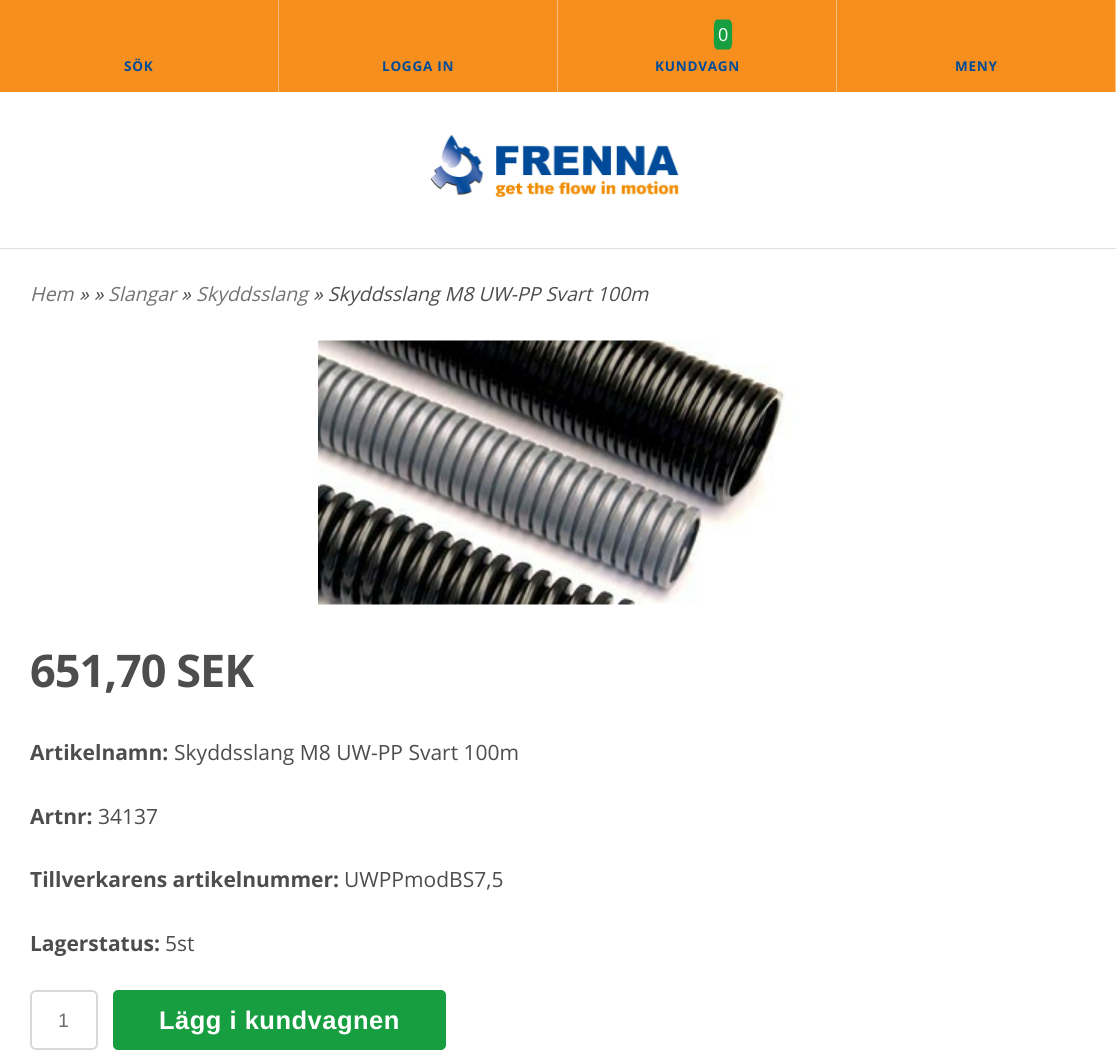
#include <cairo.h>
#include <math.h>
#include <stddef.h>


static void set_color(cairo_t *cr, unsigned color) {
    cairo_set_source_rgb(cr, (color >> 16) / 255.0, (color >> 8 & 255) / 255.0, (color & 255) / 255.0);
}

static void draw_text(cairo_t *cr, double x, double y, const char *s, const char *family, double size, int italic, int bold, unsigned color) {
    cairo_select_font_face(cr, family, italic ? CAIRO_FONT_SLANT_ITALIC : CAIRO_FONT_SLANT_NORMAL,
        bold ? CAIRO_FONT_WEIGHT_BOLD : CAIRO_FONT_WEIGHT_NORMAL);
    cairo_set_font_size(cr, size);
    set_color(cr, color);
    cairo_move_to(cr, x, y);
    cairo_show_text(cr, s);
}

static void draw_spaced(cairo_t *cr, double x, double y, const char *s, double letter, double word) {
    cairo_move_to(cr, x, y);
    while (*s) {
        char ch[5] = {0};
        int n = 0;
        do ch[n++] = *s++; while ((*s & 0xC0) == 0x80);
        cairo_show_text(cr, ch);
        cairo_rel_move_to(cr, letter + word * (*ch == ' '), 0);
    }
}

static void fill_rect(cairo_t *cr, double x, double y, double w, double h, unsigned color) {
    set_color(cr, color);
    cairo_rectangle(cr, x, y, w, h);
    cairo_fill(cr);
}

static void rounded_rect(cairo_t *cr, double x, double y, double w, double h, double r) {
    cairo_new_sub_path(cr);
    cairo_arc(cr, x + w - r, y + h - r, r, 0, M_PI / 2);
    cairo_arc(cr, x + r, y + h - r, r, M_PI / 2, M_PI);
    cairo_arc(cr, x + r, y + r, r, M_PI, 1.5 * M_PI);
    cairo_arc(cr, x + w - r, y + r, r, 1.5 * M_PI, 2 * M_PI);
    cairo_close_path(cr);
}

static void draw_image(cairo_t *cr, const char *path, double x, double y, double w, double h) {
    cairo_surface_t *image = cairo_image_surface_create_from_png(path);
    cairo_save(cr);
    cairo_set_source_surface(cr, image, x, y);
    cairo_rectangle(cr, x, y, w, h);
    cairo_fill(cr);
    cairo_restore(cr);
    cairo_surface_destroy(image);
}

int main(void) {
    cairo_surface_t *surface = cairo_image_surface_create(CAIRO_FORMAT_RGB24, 1116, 1051);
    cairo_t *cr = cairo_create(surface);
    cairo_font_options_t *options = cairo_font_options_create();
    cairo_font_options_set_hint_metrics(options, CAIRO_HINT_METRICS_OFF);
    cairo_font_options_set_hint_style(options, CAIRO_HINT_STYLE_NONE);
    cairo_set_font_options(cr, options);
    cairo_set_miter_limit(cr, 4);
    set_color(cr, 0xE1E1E1);
    cairo_paint(cr);
    fill_rect(cr, 0, 0, 278, 92, 0xF78F1E);
    fill_rect(cr, 278, 0, 1, 92, 0xFBC080);
    cairo_select_font_face(cr, "Open Sans", CAIRO_FONT_SLANT_NORMAL, CAIRO_FONT_WEIGHT_BOLD);
    cairo_set_font_size(cr, 13.5);
    set_color(cr, 0x004C98);
    draw_spaced(cr, 124, 71, "SÖK", 0.75, 0);
    fill_rect(cr, 279, 0, 278, 92, 0xF78F1E);
    fill_rect(cr, 557, 0, 1, 92, 0xFBC080);
    set_color(cr, 0x004C98);
    draw_spaced(cr, 382, 71, "LOGGA IN", 0.75, 0);
    fill_rect(cr, 558, 0, 278, 92, 0xF78F1E);
    fill_rect(cr, 836, 0, 1, 92, 0xFBC080);
    set_color(cr, 0x179E40);
    cairo_new_path(cr);
    cairo_move_to(cr, 717.5, 19.5);
    cairo_line_to(cr, 729, 19.5);
    cairo_curve_to(cr, 733.5, 21, 732, 31.5, 732, 34.5);
    cairo_curve_to(cr, 732, 37.5, 733.5, 48, 729, 49.5);
    cairo_line_to(cr, 717.5, 49.5);
    cairo_curve_to(cr, 712.5, 49.5, 714, 37, 714, 34.5);
    cairo_curve_to(cr, 714, 32, 712.5, 19.5, 717.5, 19.5);
    cairo_close_path(cr);
    cairo_fill(cr);
    draw_text(cr, 718, 41, "0", "Open Sans", 18, 0, 0, 0xFFFFFF);
    cairo_select_font_face(cr, "Open Sans", CAIRO_FONT_SLANT_NORMAL, CAIRO_FONT_WEIGHT_BOLD);
    cairo_set_font_size(cr, 13.5);
    set_color(cr, 0x004C98);
    draw_spaced(cr, 655, 71, "KUNDVAGN", 0.75, 0);
    fill_rect(cr, 837, 0, 278, 92, 0xF78F1E);
    fill_rect(cr, 1115, 0, 1, 92, 0xFBC080);
    set_color(cr, 0x004C98);
    draw_spaced(cr, 955, 71, "MENY", 0.75, 0);
    fill_rect(cr, 0, 92, 1116, 156, 0xFFFFFF);
    draw_image(cr, "assets/img1.png", 430, 135, 249, 62);
    fill_rect(cr, 0, 249, 1116, 802, 0xFFFFFF);
    draw_text(cr, 30, 301, "Hem", "Open Sans", 19.5, 1, 0, 0x737373);
    draw_text(cr, 79, 301, "» »", "Open Sans", 19.5, 1, 0, 0x4D4D4D);
    draw_text(cr, 108, 301, "Slangar", "Open Sans", 19.5, 1, 0, 0x737373);
    draw_text(cr, 181, 301, "»", "Open Sans", 19.5, 1, 0, 0x4D4D4D);
    draw_text(cr, 196, 301, "Skyddsslang", "Open Sans", 19.5, 1, 0, 0x737373);
    draw_text(cr, 313, 301, "» Skyddsslang M8 UW-PP Svart 100m", "Open Sans", 19.5, 1, 0, 0x4D4D4D);
    draw_image(cr, "assets/img2.png", 318, 340, 480, 265);
    cairo_select_font_face(cr, "Open Sans", CAIRO_FONT_SLANT_NORMAL, CAIRO_FONT_WEIGHT_BOLD);
    cairo_set_font_size(cr, 45);
    draw_spaced(cr, 30, 687, "651,70 SEK", -1, 0);
    draw_text(cr, 30, 760, "Artikelnamn:", "Open Sans", 21, 0, 1, 0x4D4D4D);
    draw_text(cr, 174, 760, "Skyddsslang M8 UW-PP Svart 100m", "Open Sans", 21, 0, 0, 0x4D4D4D);
    draw_text(cr, 30, 824, "Artnr:", "Open Sans", 21, 0, 1, 0x4D4D4D);
    draw_text(cr, 98, 824, "34137", "Open Sans", 21, 0, 0, 0x4D4D4D);
    draw_text(cr, 30, 887, "Tillverkarens artikelnummer:", "Open Sans", 21, 0, 1, 0x4D4D4D);
    draw_text(cr, 344, 887, "UWPPmodBS7,5", "Open Sans", 21, 0, 0, 0x4D4D4D);
    draw_text(cr, 30, 951, "Lagerstatus:", "Open Sans", 21, 0, 1, 0x4D4D4D);
    draw_text(cr, 165, 951, "5st", "Open Sans", 21, 0, 0, 0x4D4D4D);
    rounded_rect(cr, 31, 991, 66, 58, 5);
    set_color(cr, 0xD9D9D9);
    cairo_stroke(cr);
    draw_text(cr, 58, 1027, "1", "Liberation Sans", 19.5, 0, 0, 0x6C6C6C);
    set_color(cr, 0x179E40);
    rounded_rect(cr, 114, 991, 331, 58, 4);
    cairo_fill_preserve(cr);
    cairo_stroke(cr);
    cairo_select_font_face(cr, "Liberation Sans", CAIRO_FONT_SLANT_NORMAL, CAIRO_FONT_WEIGHT_BOLD);
    cairo_set_font_size(cr, 25.5);
    set_color(cr, 0xFFFFFF);
    draw_spaced(cr, 159, 1029, "Lägg i kundvagnen", 0.5, 0);
    cairo_surface_write_to_png(surface, "output.png");
    cairo_font_options_destroy(options);
    cairo_destroy(cr);
    cairo_surface_destroy(surface);
    return 0;
}
